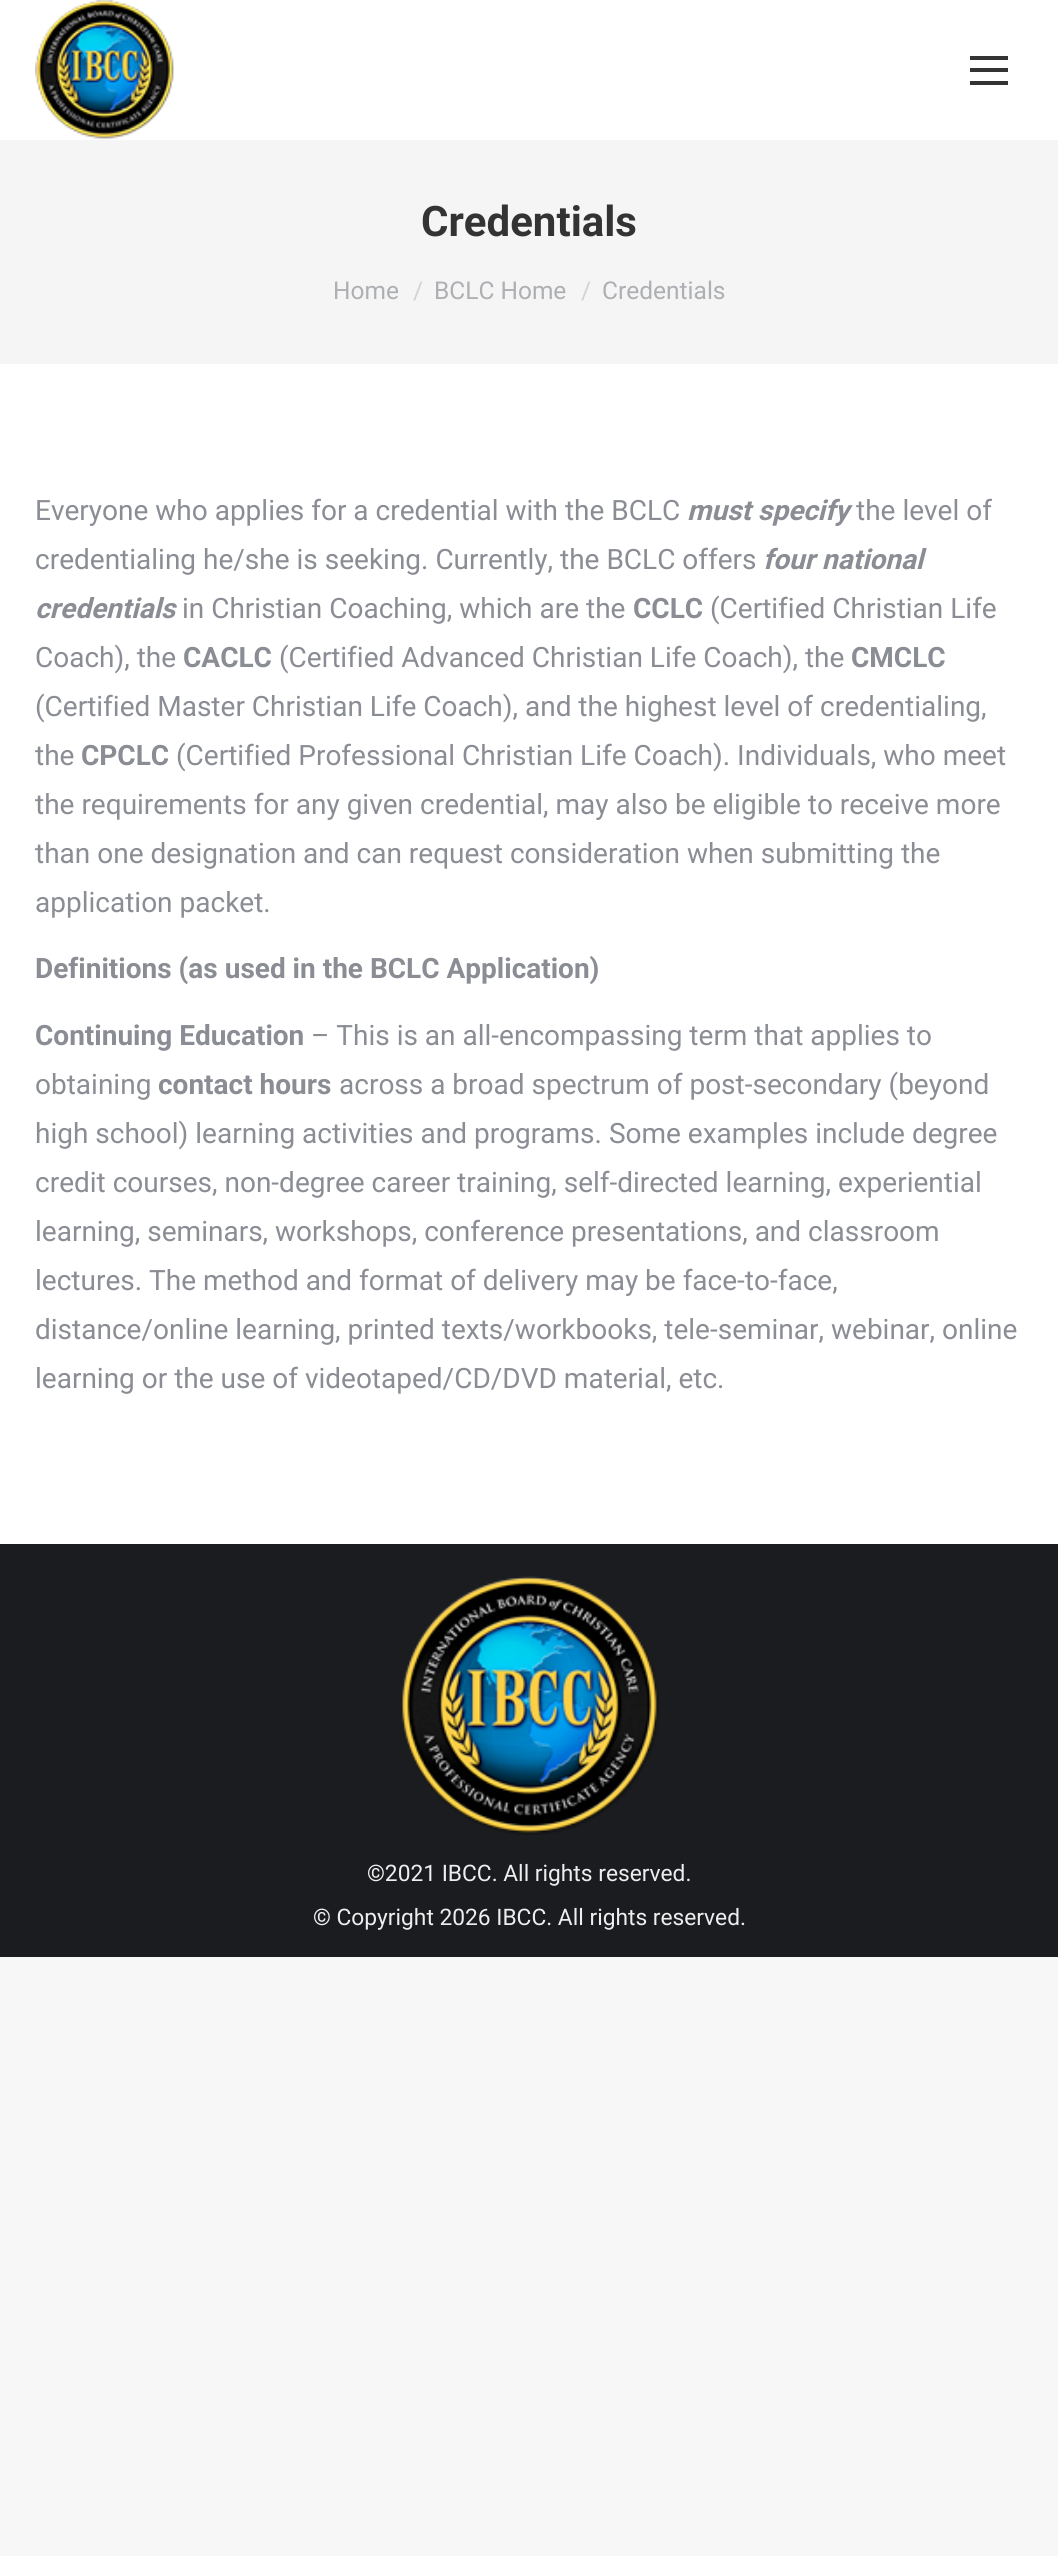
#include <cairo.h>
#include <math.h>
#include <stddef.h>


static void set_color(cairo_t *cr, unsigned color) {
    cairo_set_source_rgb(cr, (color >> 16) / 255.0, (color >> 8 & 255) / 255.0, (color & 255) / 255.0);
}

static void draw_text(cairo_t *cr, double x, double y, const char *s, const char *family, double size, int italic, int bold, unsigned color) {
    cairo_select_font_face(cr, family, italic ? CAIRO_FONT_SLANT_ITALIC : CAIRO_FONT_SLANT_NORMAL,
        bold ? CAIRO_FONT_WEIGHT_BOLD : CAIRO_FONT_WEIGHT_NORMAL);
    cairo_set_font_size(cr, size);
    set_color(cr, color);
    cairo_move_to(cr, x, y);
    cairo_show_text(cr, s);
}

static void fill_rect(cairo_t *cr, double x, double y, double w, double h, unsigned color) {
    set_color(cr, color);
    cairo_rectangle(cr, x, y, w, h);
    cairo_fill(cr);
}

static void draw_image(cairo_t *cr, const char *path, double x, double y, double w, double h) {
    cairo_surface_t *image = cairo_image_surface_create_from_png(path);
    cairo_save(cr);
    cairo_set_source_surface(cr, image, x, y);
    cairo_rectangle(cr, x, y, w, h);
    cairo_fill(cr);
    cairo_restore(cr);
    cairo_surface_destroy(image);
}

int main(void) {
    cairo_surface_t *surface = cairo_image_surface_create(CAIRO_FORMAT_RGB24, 1058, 2556);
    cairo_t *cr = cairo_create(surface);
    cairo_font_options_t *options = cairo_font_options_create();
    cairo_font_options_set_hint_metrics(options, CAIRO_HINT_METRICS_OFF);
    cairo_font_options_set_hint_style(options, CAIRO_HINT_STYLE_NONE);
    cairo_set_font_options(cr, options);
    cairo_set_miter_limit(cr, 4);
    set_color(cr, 0xF7F7F7);
    cairo_paint(cr);
    fill_rect(cr, 0, 0, 1058, 1544, 0xFFFFFF);
    draw_image(cr, "assets/img1.png", 35, 0, 139, 139);
    fill_rect(cr, 970, 56, 38, 4, 0x333333);
    fill_rect(cr, 970, 68, 38, 4, 0x333333);
    fill_rect(cr, 970, 81, 38, 4, 0x333333);
    fill_rect(cr, 0, 140, 1058, 224, 0xF5F5F5);
    draw_text(cr, 421, 236, "Credentials", "Roboto", 42, 0, 1, 0x333333);
    draw_text(cr, 333, 299, "Home", "Roboto", 24.5, 0, 0, 0xADAFB3);
    draw_text(cr, 413, 299, "/", "Roboto", 24.5, 0, 0, 0xD1D2D4);
    draw_text(cr, 434, 299, "BCLC Home", "Roboto", 24.5, 0, 0, 0xADAFB3);
    draw_text(cr, 581, 299, "/", "Roboto", 24.5, 0, 0, 0xD1D2D4);
    draw_text(cr, 602, 299, "Credentials", "Roboto", 24.5, 0, 0, 0xADAFB3);
    draw_text(cr, 35, 520, "Everyone who applies for a credential with the BCLC", "Roboto", 28, 0, 0, 0x8B8D94);
    draw_text(cr, 687, 520, "must specify", "Roboto", 28, 1, 1, 0x8B8D94);
    draw_text(cr, 856, 520, "the level of", "Roboto", 28, 0, 0, 0x8B8D94);
    draw_text(cr, 35, 569, "credentialing he/she is seeking. Currently, the BCLC offers", "Roboto", 28, 0, 0, 0x8B8D94);
    draw_text(cr, 763, 569, "four national", "Roboto", 28, 1, 1, 0x8B8D94);
    draw_text(cr, 35, 618, "credentials", "Roboto", 28, 1, 1, 0x8B8D94);
    draw_text(cr, 182, 618, "in Christian Coaching, which are the", "Roboto", 28, 0, 0, 0x8B8D94);
    draw_text(cr, 633, 618, "CCLC", "Roboto", 28, 0, 1, 0x8B8D94);
    draw_text(cr, 710, 618, "(Certified Christian Life", "Roboto", 28, 0, 0, 0x8B8D94);
    draw_text(cr, 35, 667, "Coach), the", "Roboto", 28, 0, 0, 0x8B8D94);
    draw_text(cr, 183, 667, "CACLC", "Roboto", 28, 0, 1, 0x8B8D94);
    draw_text(cr, 279, 667, "(Certified Advanced Christian Life Coach), the", "Roboto", 28, 0, 0, 0x8B8D94);
    draw_text(cr, 851, 667, "CMCLC", "Roboto", 28, 0, 1, 0x8B8D94);
    draw_text(cr, 35, 716, "(Certified Master Christian Life Coach), and the highest level of credentialing,", "Roboto", 28, 0, 0, 0x8B8D94);
    draw_text(cr, 35, 765, "the", "Roboto", 28, 0, 0, 0x8B8D94);
    draw_text(cr, 81, 765, "CPCLC", "Roboto", 28, 0, 1, 0x8B8D94);
    draw_text(cr, 176, 765, "(Certified Professional Christian Life Coach). Individuals, who meet", "Roboto", 28, 0, 0, 0x8B8D94);
    draw_text(cr, 35, 814, "the requirements for any given credential, may also be eligible to receive more", "Roboto", 28, 0, 0, 0x8B8D94);
    draw_text(cr, 35, 863, "than one designation and can request consideration when submitting the", "Roboto", 28, 0, 0, 0x8B8D94);
    draw_text(cr, 35, 912, "application packet.", "Roboto", 28, 0, 0, 0x8B8D94);
    draw_text(cr, 35, 978, "Definitions (as used in the BCLC Application)", "Roboto", 28, 0, 1, 0x8B8D94);
    draw_text(cr, 35, 1045, "Continuing Education", "Roboto", 28, 0, 1, 0x8B8D94);
    draw_text(cr, 311, 1045, "– This is an all-encompassing term that applies to", "Roboto", 28, 0, 0, 0x8B8D94);
    draw_text(cr, 35, 1094, "obtaining", "Roboto", 28, 0, 0, 0x8B8D94);
    draw_text(cr, 158, 1094, "contact hours", "Roboto", 28, 0, 1, 0x8B8D94);
    draw_text(cr, 339, 1094, "across a broad spectrum of post-secondary (beyond", "Roboto", 28, 0, 0, 0x8B8D94);
    draw_text(cr, 35, 1143, "high school) learning activities and programs. Some examples include degree", "Roboto", 28, 0, 0, 0x8B8D94);
    draw_text(cr, 35, 1192, "credit courses, non-degree career training, self-directed learning, experiential", "Roboto", 28, 0, 0, 0x8B8D94);
    draw_text(cr, 35, 1241, "learning, seminars, workshops, conference presentations, and classroom", "Roboto", 28, 0, 0, 0x8B8D94);
    draw_text(cr, 35, 1290, "lectures. The method and format of delivery may be face-to-face,", "Roboto", 28, 0, 0, 0x8B8D94);
    draw_text(cr, 35, 1339, "distance/online learning, printed texts/workbooks, tele-seminar, webinar, online", "Roboto", 28, 0, 0, 0x8B8D94);
    draw_text(cr, 35, 1388, "learning or the use of videotaped/CD/DVD material, etc.", "Roboto", 28, 0, 0, 0x8B8D94);
    fill_rect(cr, 0, 1544, 1058, 413, 0x1A1C20);
    draw_image(cr, "assets/img2.png", 402, 1576, 257, 259);
    draw_text(cr, 367, 1881, "©2021 IBCC. All rights reserved.", "Roboto", 22.75, 0, 0, 0xEEEEEE);
    draw_text(cr, 313, 1925, "© Copyright 2026 IBCC. All rights reserved.", "Roboto", 22.75, 0, 0, 0xEEEEEE);
    cairo_surface_write_to_png(surface, "output.png");
    cairo_font_options_destroy(options);
    cairo_destroy(cr);
    cairo_surface_destroy(surface);
    return 0;
}
